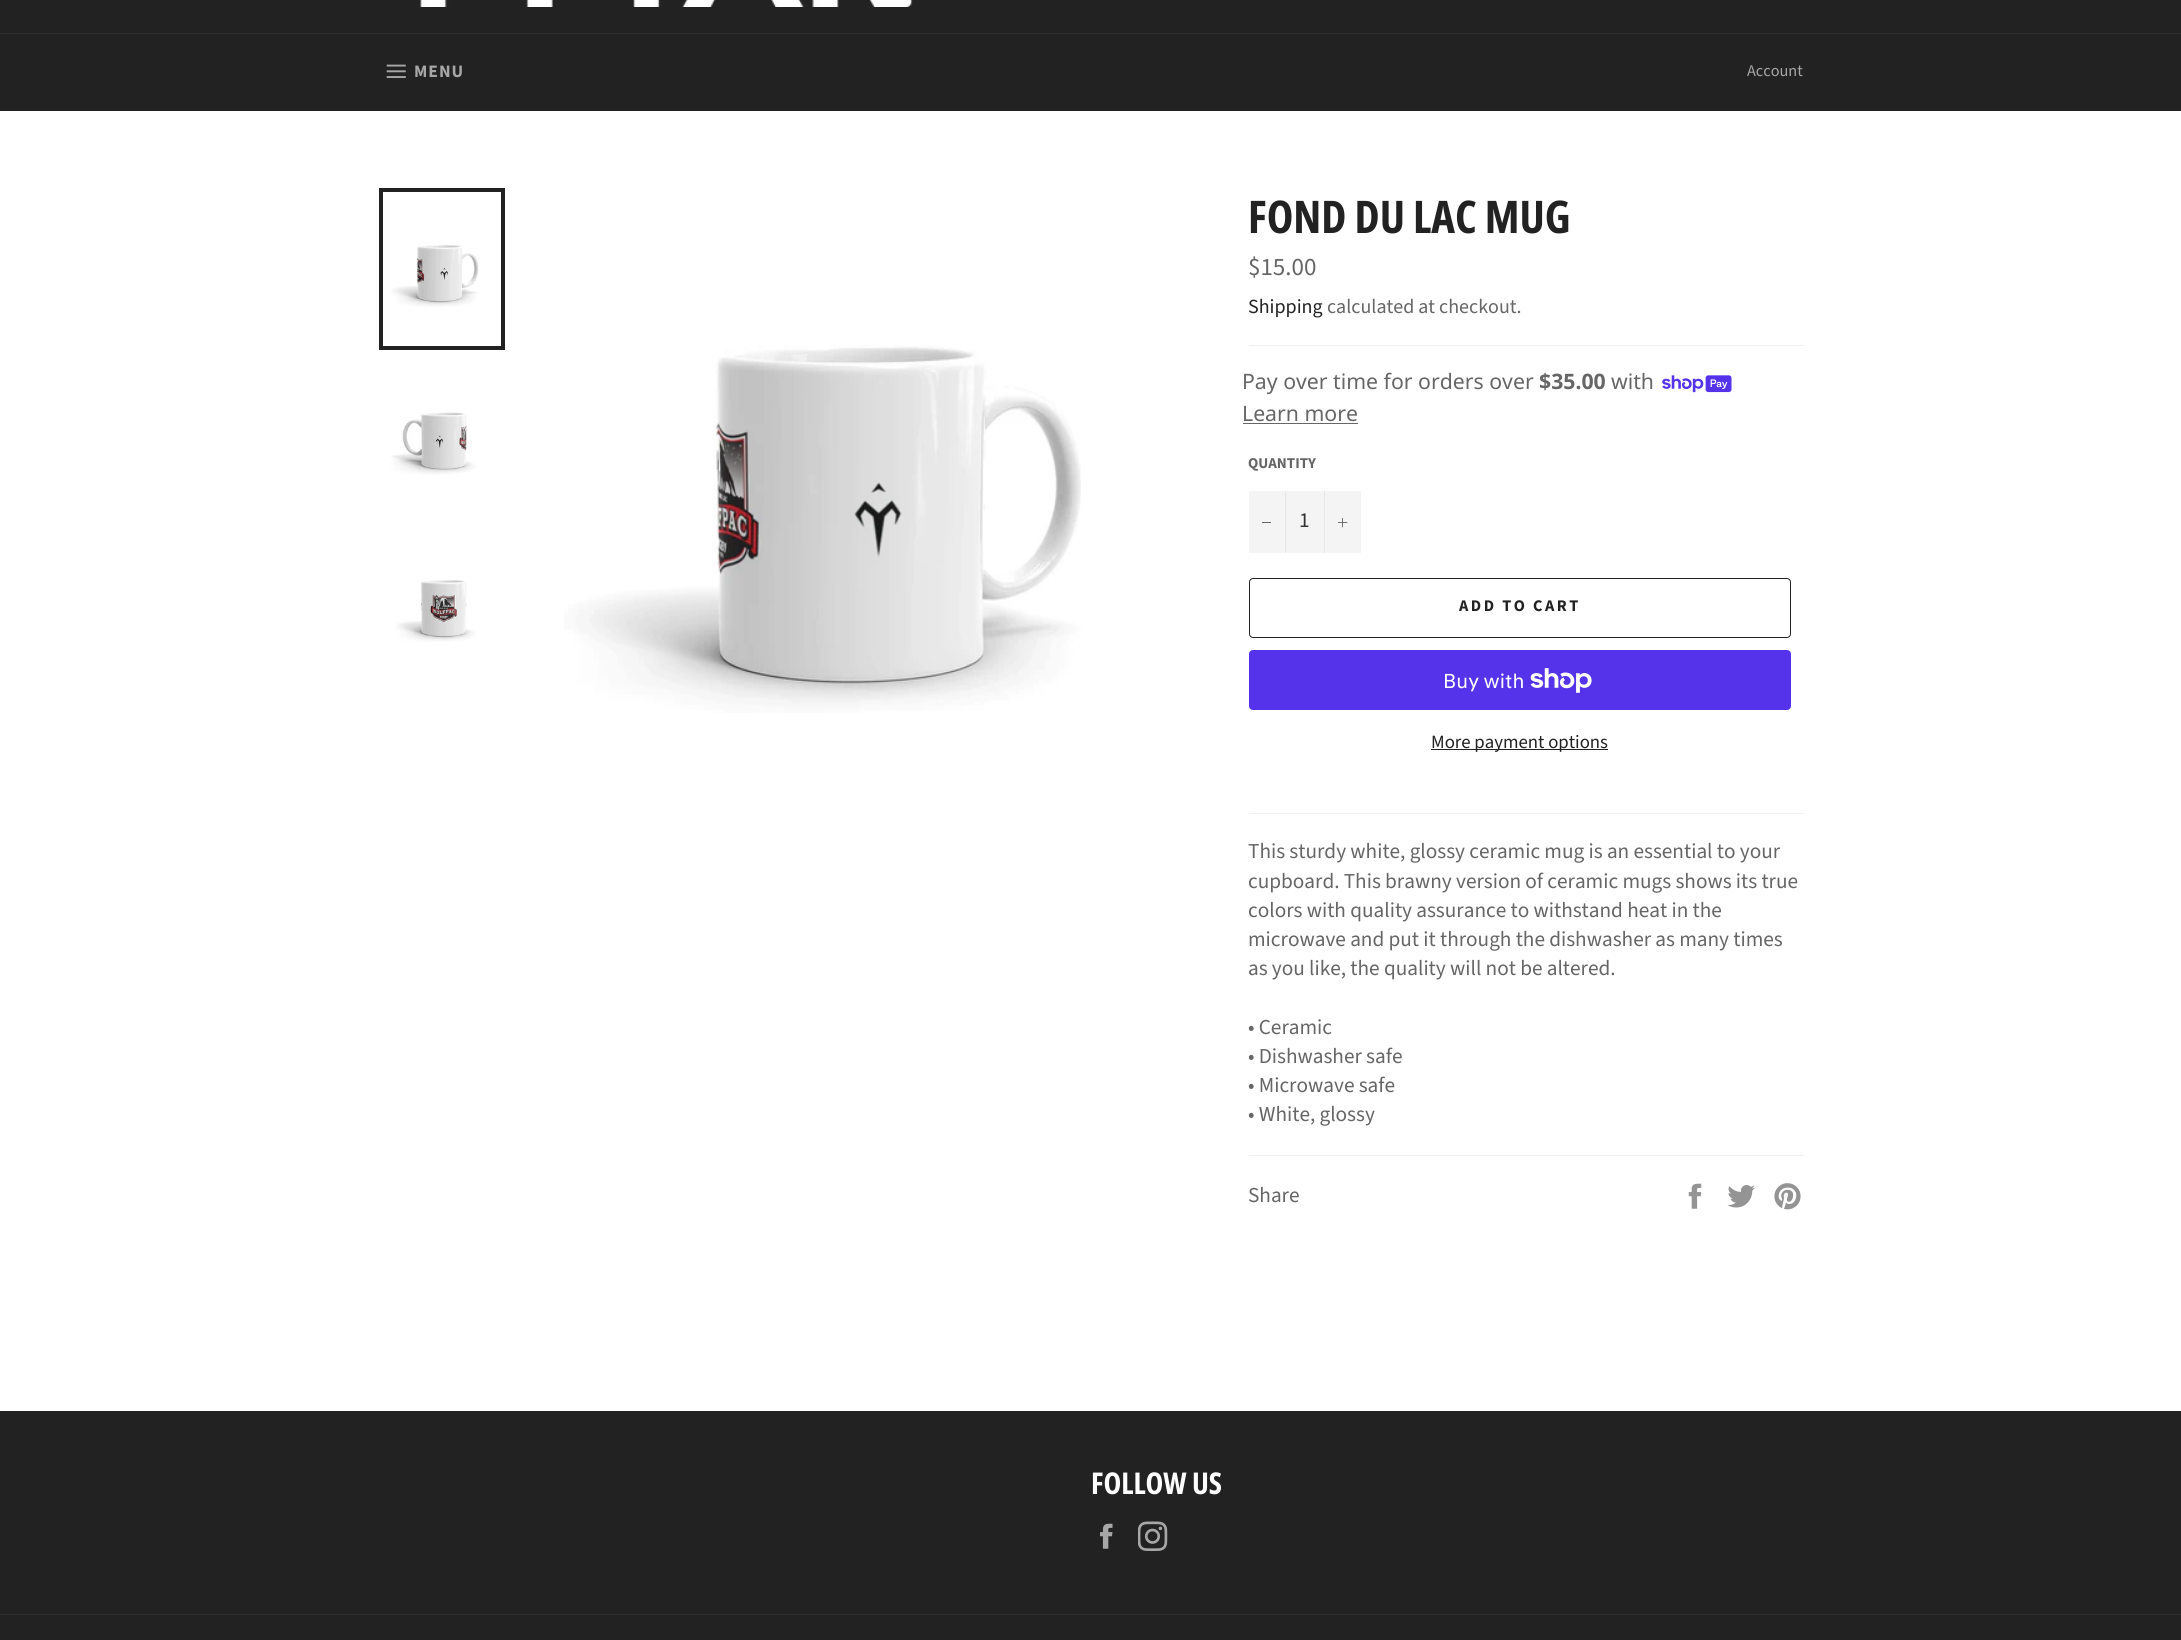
#include <cairo.h>
#include <math.h>
#include <stddef.h>


static void set_color(cairo_t *cr, unsigned color) {
    cairo_set_source_rgb(cr, (color >> 16) / 255.0, (color >> 8 & 255) / 255.0, (color & 255) / 255.0);
}

static void draw_text(cairo_t *cr, double x, double y, const char *s, const char *family, double size, int italic, int bold, unsigned color) {
    cairo_select_font_face(cr, family, italic ? CAIRO_FONT_SLANT_ITALIC : CAIRO_FONT_SLANT_NORMAL,
        bold ? CAIRO_FONT_WEIGHT_BOLD : CAIRO_FONT_WEIGHT_NORMAL);
    cairo_set_font_size(cr, size);
    set_color(cr, color);
    cairo_move_to(cr, x, y);
    cairo_show_text(cr, s);
}

static void draw_spaced(cairo_t *cr, double x, double y, const char *s, double letter, double word) {
    cairo_move_to(cr, x, y);
    while (*s) {
        char ch[5] = {0};
        int n = 0;
        do ch[n++] = *s++; while ((*s & 0xC0) == 0x80);
        cairo_show_text(cr, ch);
        cairo_rel_move_to(cr, letter + word * (*ch == ' '), 0);
    }
}

static void fill_rect(cairo_t *cr, double x, double y, double w, double h, unsigned color) {
    set_color(cr, color);
    cairo_rectangle(cr, x, y, w, h);
    cairo_fill(cr);
}

static void rounded_rect(cairo_t *cr, double x, double y, double w, double h, double r) {
    cairo_new_sub_path(cr);
    cairo_arc(cr, x + w - r, y + h - r, r, 0, M_PI / 2);
    cairo_arc(cr, x + r, y + h - r, r, M_PI / 2, M_PI);
    cairo_arc(cr, x + r, y + r, r, M_PI, 1.5 * M_PI);
    cairo_arc(cr, x + w - r, y + r, r, 1.5 * M_PI, 2 * M_PI);
    cairo_close_path(cr);
}

static void draw_image(cairo_t *cr, const char *path, double x, double y, double w, double h) {
    cairo_surface_t *image = cairo_image_surface_create_from_png(path);
    cairo_save(cr);
    cairo_set_source_surface(cr, image, x, y);
    cairo_rectangle(cr, x, y, w, h);
    cairo_fill(cr);
    cairo_restore(cr);
    cairo_surface_destroy(image);
}

int main(void) {
    cairo_surface_t *surface = cairo_image_surface_create(CAIRO_FORMAT_RGB24, 2181, 1640);
    cairo_t *cr = cairo_create(surface);
    cairo_font_options_t *options = cairo_font_options_create();
    cairo_font_options_set_hint_metrics(options, CAIRO_HINT_METRICS_OFF);
    cairo_font_options_set_hint_style(options, CAIRO_HINT_STYLE_NONE);
    cairo_set_font_options(cr, options);
    cairo_set_miter_limit(cr, 4);
    set_color(cr, 0x222222);
    cairo_paint(cr);
    draw_image(cr, "assets/img1.png", 420, 0, 493, 7);
    fill_rect(cr, 0, 33, 2181, 1, 0x2F2F2F);
    draw_image(cr, "assets/img2.png", 386, 64, 20, 14);
    cairo_select_font_face(cr, "Source Sans Pro", CAIRO_FONT_SLANT_NORMAL, CAIRO_FONT_WEIGHT_BOLD);
    cairo_set_font_size(cr, 17.5);
    set_color(cr, 0xA7A7A7);
    draw_spaced(cr, 414, 77, "MENU", 1, 0);
    draw_text(cr, 1747, 76, "Account", "Source Sans Pro", 16.25, 0, 0, 0xA7A7A7);
    fill_rect(cr, 0, 111, 2181, 1300, 0xFFFFFF);
    draw_image(cr, "assets/img3.png", 391, 245, 88, 62);
    cairo_rectangle(cr, 381, 190, 122, 158);
    set_color(cr, 0x222222);
    cairo_set_line_width(cr, 4);
    cairo_stroke(cr);
    draw_image(cr, "assets/img4.png", 391, 412, 85, 63);
    draw_image(cr, "assets/img5.png", 396, 580, 80, 62);
    draw_image(cr, "assets/img6.png", 564, 345, 517, 368);
    draw_text(cr, 1248, 233, "FOND DU LAC MUG", "Open Sans Condensed", 45, 0, 1, 0x222222);
    draw_text(cr, 1248, 275, "$15.00", "Source Sans Pro", 25, 0, 0, 0x666666);
    draw_text(cr, 1248, 313, "Shipping", "Source Sans Pro", 20, 0, 0, 0x222222);
    draw_text(cr, 1327, 313, "calculated at checkout.", "Source Sans Pro", 20, 0, 0, 0x666666);
    fill_rect(cr, 1249, 345, 555, 1, 0xF0F0F0);
    draw_text(cr, 1242, 389, "Pay over time for orders over", "Noto Sans", 21.25, 0, 0, 0x666666);
    draw_text(cr, 1539, 389, "$35.00", "Noto Sans", 21.25, 0, 1, 0x666666);
    draw_text(cr, 1611, 389, "with", "Noto Sans", 21.25, 0, 0, 0x666666);
    draw_image(cr, "assets/img7.png", 1662, 375, 70, 18);
    draw_text(cr, 1242, 421, "Learn more", "Noto Sans", 21.25, 0, 0, 0x666666);
    fill_rect(cr, 1243, 423, 115, 1, 0x666666);
    draw_text(cr, 1248, 468, "QUANTITY", "Source Sans Pro", 15, 0, 1, 0x666666);
    fill_rect(cr, 1249, 491, 112, 62, 0xF4F4F4);
    fill_rect(cr, 1285, 491, 1, 62, 0xE7E7E7);
    fill_rect(cr, 1262, 522, 9, 1, 0x666666);
    draw_text(cr, 1299, 527, "1", "Source Sans Pro", 21.25, 0, 0, 0x333333);
    fill_rect(cr, 1324, 491, 1, 62, 0xE7E7E7);
    draw_image(cr, "assets/img8.png", 1338, 518, 10, 10);
    rounded_rect(cr, 1249.5, 578.5, 541, 59, 3.5);
    set_color(cr, 0x222222);
    cairo_set_line_width(cr, 1);
    cairo_stroke(cr);
    cairo_select_font_face(cr, "Source Sans Pro", CAIRO_FONT_SLANT_NORMAL, CAIRO_FONT_WEIGHT_BOLD);
    cairo_set_font_size(cr, 16.25);
    draw_spaced(cr, 1459, 611, "ADD TO CART", 2.5, 0);
    set_color(cr, 0x5433EB);
    rounded_rect(cr, 1249, 650, 542, 60, 4);
    cairo_fill(cr);
    draw_text(cr, 1443, 688, "Buy with", "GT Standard", 20, 0, 0, 0xFFFFFF);
    draw_image(cr, "assets/img9.png", 1530, 668, 62, 25);
    fill_rect(cr, 1431, 749, 177, 1, 0x222222);
    draw_text(cr, 1431, 748, "More payment options", "Source Sans Pro", 18.75, 0, 0, 0x222222);
    fill_rect(cr, 1249, 813, 555, 1, 0xF0F0F0);
    draw_text(cr, 1248, 858, "This sturdy white, glossy ceramic mug is an essential to your", "Source Sans Pro", 21.25, 0, 0, 0x666666);
    draw_text(cr, 1248, 888, "cupboard. This brawny version of ceramic mugs shows its true", "Source Sans Pro", 21.25, 0, 0, 0x666666);
    draw_text(cr, 1248, 917, "colors with quality assurance to withstand heat in the", "Source Sans Pro", 21.25, 0, 0, 0x666666);
    draw_text(cr, 1248, 946, "microwave and put it through the dishwasher as many times", "Source Sans Pro", 21.25, 0, 0, 0x666666);
    draw_text(cr, 1248, 975, "as you like, the quality will not be altered.", "Source Sans Pro", 21.25, 0, 0, 0x666666);
    draw_text(cr, 1248, 1034, "• Ceramic", "Source Sans Pro", 21.25, 0, 0, 0x666666);
    draw_text(cr, 1248, 1063, "• Dishwasher safe", "Source Sans Pro", 21.25, 0, 0, 0x666666);
    draw_text(cr, 1248, 1092, "• Microwave safe", "Source Sans Pro", 21.25, 0, 0, 0x666666);
    draw_text(cr, 1248, 1121, "• White, glossy", "Source Sans Pro", 21.25, 0, 0, 0x666666);
    fill_rect(cr, 1249, 1155, 555, 1, 0xF0F0F0);
    draw_text(cr, 1248, 1202, "Share", "Source Sans Pro", 21.25, 0, 0, 0x666666);
    draw_image(cr, "assets/img10.png", 1688, 1183, 14, 26);
    draw_image(cr, "assets/img11.png", 1727, 1185, 28, 23);
    draw_image(cr, "assets/img12.png", 1774, 1183, 27, 27);
    draw_text(cr, 1091, 1494, "FOLLOW US", "Open Sans Condensed", 30, 0, 1, 0xFFFFFF);
    draw_image(cr, "assets/img13.png", 1100, 1523, 13, 26);
    draw_image(cr, "assets/img14.png", 1138, 1521, 30, 30);
    fill_rect(cr, 0, 1614, 2181, 1, 0x2F2F2F);
    cairo_surface_write_to_png(surface, "output.png");
    cairo_font_options_destroy(options);
    cairo_destroy(cr);
    cairo_surface_destroy(surface);
    return 0;
}
